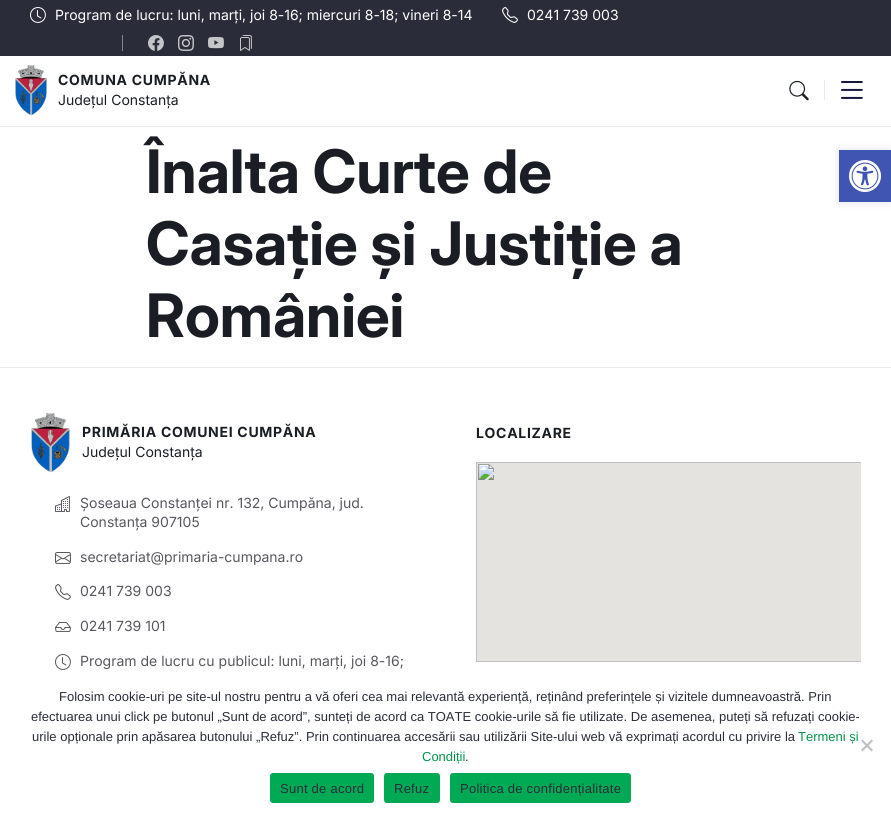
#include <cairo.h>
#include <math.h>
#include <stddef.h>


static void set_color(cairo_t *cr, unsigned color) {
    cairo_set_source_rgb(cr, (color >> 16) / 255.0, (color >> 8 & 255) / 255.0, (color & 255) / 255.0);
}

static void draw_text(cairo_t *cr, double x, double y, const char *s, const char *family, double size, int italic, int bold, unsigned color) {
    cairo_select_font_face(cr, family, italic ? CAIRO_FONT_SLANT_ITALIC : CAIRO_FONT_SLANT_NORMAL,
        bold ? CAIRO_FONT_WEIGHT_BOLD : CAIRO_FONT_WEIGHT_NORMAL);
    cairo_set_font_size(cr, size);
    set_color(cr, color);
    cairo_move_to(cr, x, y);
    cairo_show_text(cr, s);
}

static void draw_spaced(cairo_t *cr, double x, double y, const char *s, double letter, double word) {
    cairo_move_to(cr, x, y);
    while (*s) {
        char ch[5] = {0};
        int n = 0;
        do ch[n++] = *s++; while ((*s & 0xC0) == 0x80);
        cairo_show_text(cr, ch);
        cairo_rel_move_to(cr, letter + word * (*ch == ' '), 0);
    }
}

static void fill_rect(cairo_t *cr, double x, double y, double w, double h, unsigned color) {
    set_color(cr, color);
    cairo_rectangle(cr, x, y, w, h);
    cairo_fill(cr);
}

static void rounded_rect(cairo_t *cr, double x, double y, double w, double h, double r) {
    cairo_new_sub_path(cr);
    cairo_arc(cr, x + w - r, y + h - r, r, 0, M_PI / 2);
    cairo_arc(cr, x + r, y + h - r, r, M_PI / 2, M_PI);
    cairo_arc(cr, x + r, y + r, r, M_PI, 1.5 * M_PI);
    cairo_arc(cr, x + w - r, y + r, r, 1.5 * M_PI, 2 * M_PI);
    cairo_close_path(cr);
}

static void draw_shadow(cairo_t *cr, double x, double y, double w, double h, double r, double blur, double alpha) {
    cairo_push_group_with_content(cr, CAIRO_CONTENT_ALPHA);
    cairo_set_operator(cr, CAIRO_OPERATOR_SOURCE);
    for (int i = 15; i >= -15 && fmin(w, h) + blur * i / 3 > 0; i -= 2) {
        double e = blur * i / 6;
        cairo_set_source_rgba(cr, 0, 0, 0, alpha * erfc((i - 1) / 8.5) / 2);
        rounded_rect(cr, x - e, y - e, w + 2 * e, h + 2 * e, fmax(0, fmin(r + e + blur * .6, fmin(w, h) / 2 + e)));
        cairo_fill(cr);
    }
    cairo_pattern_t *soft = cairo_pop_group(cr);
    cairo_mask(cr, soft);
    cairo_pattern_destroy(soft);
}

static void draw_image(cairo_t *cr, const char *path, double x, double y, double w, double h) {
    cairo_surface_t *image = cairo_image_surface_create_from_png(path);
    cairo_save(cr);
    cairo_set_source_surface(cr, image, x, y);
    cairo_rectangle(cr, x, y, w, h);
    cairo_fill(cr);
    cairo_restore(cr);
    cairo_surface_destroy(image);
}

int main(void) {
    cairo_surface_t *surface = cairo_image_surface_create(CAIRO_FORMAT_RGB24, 891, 818);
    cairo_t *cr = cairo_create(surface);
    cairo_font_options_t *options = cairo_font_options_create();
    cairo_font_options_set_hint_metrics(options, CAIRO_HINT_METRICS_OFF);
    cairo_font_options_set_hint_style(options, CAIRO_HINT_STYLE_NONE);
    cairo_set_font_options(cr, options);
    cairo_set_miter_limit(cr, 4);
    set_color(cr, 0xFFFFFF);
    cairo_paint(cr);
    fill_rect(cr, 0, 126, 891, 1, 0xE9E9EA);
    fill_rect(cr, 0, 0, 891, 56, 0x2A2D39);
    draw_image(cr, "assets/img1.png", 30, 7, 16, 16);
    draw_text(cr, 55, 20, "Program de lucru: luni, marți, joi 8-16; miercuri 8-18; vineri 8-14", "Inter", 14, 0, 0, 0xFFFFFF);
    draw_image(cr, "assets/img2.png", 502, 7, 16, 16);
    draw_text(cr, 527, 20, "0241 739 003", "Inter", 14, 0, 0, 0xFFFFFF);
    fill_rect(cr, 122, 35, 1, 16, 0x83858C);
    draw_image(cr, "assets/img3.png", 148, 35, 16, 16);
    draw_image(cr, "assets/img4.png", 178, 35, 16, 16);
    draw_image(cr, "assets/img5.png", 208, 37, 16, 12);
    draw_image(cr, "assets/img6.png", 240, 35, 12, 16);
    draw_image(cr, "assets/img7.png", 15, 65, 32, 51);
    cairo_select_font_face(cr, "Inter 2", CAIRO_FONT_SLANT_NORMAL, CAIRO_FONT_WEIGHT_BOLD);
    set_color(cr, 0x1A1E24);
    draw_spaced(cr, 58, 85, "COMUNA CUMPĂNA", 0.7, 0);
    draw_text(cr, 58, 105, "Județul Constanța", "Inter", 14, 0, 0, 0x1A1E24);
    draw_image(cr, "assets/img8.png", 789, 80, 20, 21);
    fill_rect(cr, 824, 80, 1, 20, 0xE9E9EA);
    draw_image(cr, "assets/img9.png", 841, 81, 22, 18);
    draw_text(cr, 146, 193, "Înalta Curte de", "Inter", 60, 0, 1, 0x1A1E24);
    draw_text(cr, 146, 265, "Casație și Justiție a", "Inter", 60, 0, 1, 0x1A1E24);
    draw_text(cr, 146, 337, "României", "Inter", 60, 0, 1, 0x1A1E24);
    set_color(cr, 0x000000);
    draw_shadow(cr, 839, 150, 52, 52, 0, 5, 0.1);
    fill_rect(cr, 839, 150, 52, 52, 0x4054B2);
    draw_image(cr, "assets/img10.png", 849, 160, 32, 32);
    fill_rect(cr, 0, 367, 891, 1, 0xE9E9EA);
    draw_image(cr, "assets/img11.png", 31, 413, 39, 60);
    cairo_select_font_face(cr, "Inter 2", CAIRO_FONT_SLANT_NORMAL, CAIRO_FONT_WEIGHT_BOLD);
    cairo_set_font_size(cr, 14);
    set_color(cr, 0x1A1E24);
    draw_spaced(cr, 82, 437, "PRIMĂRIA COMUNEI CUMPĂNA", 0.7, 0);
    draw_text(cr, 82, 457, "Județul Constanța", "Inter", 14, 0, 0, 0x1A1E24);
    draw_image(cr, "assets/img12.png", 55, 496, 15, 16);
    draw_text(cr, 80, 508, "Șoseaua Constanței nr. 132, Cumpăna, jud.", "Inter", 14, 0, 0, 0x58575E);
    draw_text(cr, 80, 527, "Constanța 907105", "Inter", 14, 0, 0, 0x58575E);
    draw_image(cr, "assets/img13.png", 55, 552, 16, 12);
    draw_text(cr, 80, 562, "secretariat@primaria-cumpana.ro", "Inter", 14, 0, 0, 0x58575E);
    draw_image(cr, "assets/img14.png", 55, 584, 16, 16);
    draw_text(cr, 80, 596, "0241 739 003", "Inter", 14, 0, 0, 0x58575E);
    draw_image(cr, "assets/img15.png", 55, 622, 16, 10);
    draw_text(cr, 80, 631, "0241 739 101", "Inter", 14, 0, 0, 0x58575E);
    draw_image(cr, "assets/img16.png", 55, 654, 16, 16);
    draw_text(cr, 80, 666, "Program de lucru cu publicul: luni, marți, joi 8-16;", "Inter", 14, 0, 0, 0x58575E);
    cairo_select_font_face(cr, "Inter 2", CAIRO_FONT_SLANT_NORMAL, CAIRO_FONT_WEIGHT_BOLD);
    set_color(cr, 0x1A1E24);
    draw_spaced(cr, 476, 438, "LOCALIZARE", 0.7, 0);
    draw_image(cr, "assets/img17.png", 476, 462, 385, 200);
    draw_text(cr, 59, 701, "Folosim cookie-uri pe site-ul nostru pentru a vă oferi cea mai relevantă experiență, reținând preferințele și vizitele dumneavoastră. Prin", "Liberation Sans", 13, 0, 0, 0x2A2D39);
    draw_text(cr, 31, 721, "efectuarea unui click pe butonul „Sunt de acord”, sunteți de acord ca TOATE cookie-urile să fie utilizate. De asemenea, puteți să refuzați cookie-", "Liberation Sans", 13, 0, 0, 0x2A2D39);
    draw_text(cr, 32, 741, "urile opționale prin apăsarea butonului „Refuz”. Prin continuarea accesării sau utilizării Site-ului web vă exprimați acordul cu privire la", "Liberation Sans", 13, 0, 0, 0x2A2D39);
    draw_text(cr, 798, 741, "Termeni și", "Liberation Sans", 13, 0, 0, 0x03934B);
    draw_text(cr, 422, 761, "Condiții", "Liberation Sans", 13, 0, 0, 0x03934B);
    draw_text(cr, 465, 761, ".", "Liberation Sans", 13, 0, 0, 0x2A2D39);
    set_color(cr, 0xC0C0C0);
    cairo_new_path(cr);
    cairo_move_to(cr, 871.5, 739.5);
    cairo_line_to(cr, 873, 741);
    cairo_line_to(cr, 862.5, 751.5);
    cairo_line_to(cr, 861, 750);
    cairo_close_path(cr);
    cairo_fill(cr);
    cairo_new_path(cr);
    cairo_move_to(cr, 861, 741);
    cairo_line_to(cr, 862.5, 739.5);
    cairo_line_to(cr, 873, 750);
    cairo_line_to(cr, 871.5, 751.5);
    cairo_close_path(cr);
    cairo_fill(cr);
    set_color(cr, 0x00AA55);
    rounded_rect(cr, 270, 773, 104, 30, 3);
    cairo_fill(cr);
    set_color(cr, 0x2A2D39);
    draw_spaced(cr, 280, 793, "Sunt de acord", 0.25, 0);
    set_color(cr, 0x00AA55);
    rounded_rect(cr, 384, 773, 56, 30, 3);
    cairo_fill(cr);
    set_color(cr, 0x2A2D39);
    draw_spaced(cr, 394, 793, "Refuz", 0.25, 0);
    set_color(cr, 0x00AA55);
    rounded_rect(cr, 450, 773, 181, 30, 3);
    cairo_fill(cr);
    set_color(cr, 0x2A2D39);
    draw_spaced(cr, 460, 793, "Politica de confidențialitate", 0.25, 0);
    cairo_surface_write_to_png(surface, "output.png");
    cairo_font_options_destroy(options);
    cairo_destroy(cr);
    cairo_surface_destroy(surface);
    return 0;
}
